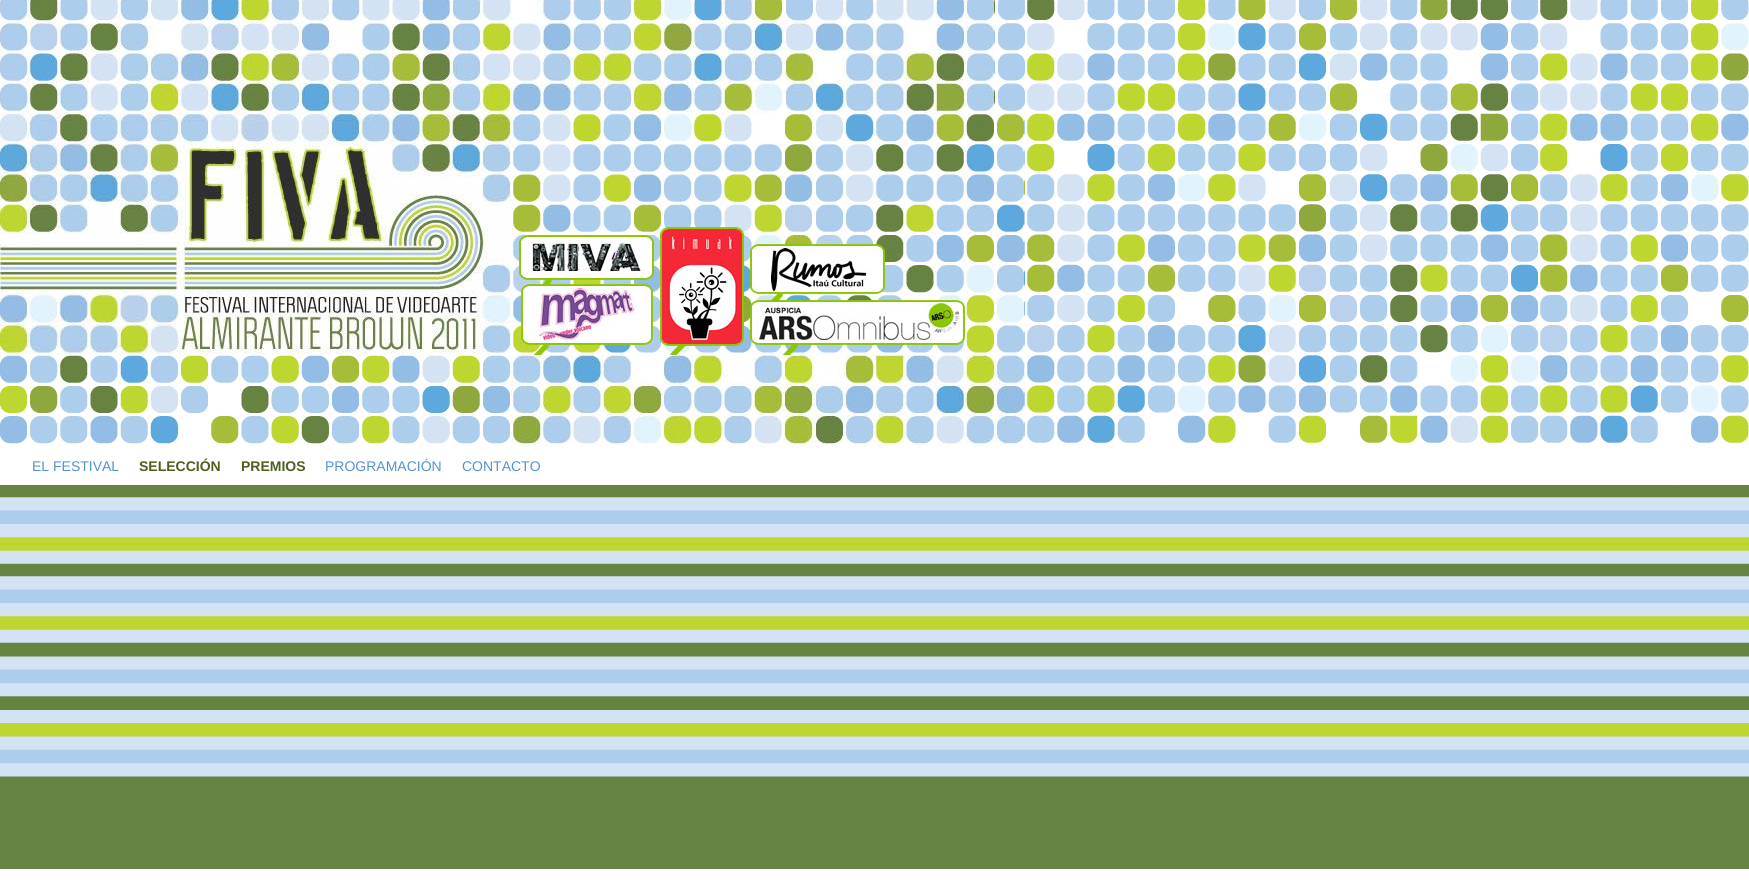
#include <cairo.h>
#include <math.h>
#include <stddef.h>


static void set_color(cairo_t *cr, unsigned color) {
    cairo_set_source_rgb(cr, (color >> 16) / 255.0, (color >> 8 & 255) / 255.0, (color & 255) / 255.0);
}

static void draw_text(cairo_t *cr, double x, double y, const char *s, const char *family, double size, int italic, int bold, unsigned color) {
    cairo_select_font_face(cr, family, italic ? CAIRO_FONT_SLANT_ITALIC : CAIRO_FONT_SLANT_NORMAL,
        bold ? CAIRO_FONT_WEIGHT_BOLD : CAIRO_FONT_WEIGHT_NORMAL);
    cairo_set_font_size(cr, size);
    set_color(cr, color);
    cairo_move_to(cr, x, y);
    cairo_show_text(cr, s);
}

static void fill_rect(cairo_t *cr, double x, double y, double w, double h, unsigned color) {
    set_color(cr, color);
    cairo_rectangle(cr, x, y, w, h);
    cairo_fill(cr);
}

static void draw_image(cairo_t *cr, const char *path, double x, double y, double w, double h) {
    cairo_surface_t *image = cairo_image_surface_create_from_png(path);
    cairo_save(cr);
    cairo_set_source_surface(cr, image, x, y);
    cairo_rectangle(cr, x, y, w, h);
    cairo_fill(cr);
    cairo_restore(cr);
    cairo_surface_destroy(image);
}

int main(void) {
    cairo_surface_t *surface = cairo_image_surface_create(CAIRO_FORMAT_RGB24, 1749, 890);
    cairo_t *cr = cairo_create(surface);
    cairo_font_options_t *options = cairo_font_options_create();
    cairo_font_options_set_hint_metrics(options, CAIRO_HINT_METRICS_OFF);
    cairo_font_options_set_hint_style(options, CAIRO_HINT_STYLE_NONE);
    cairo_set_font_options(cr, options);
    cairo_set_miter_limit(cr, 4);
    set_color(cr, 0xFFFFFF);
    cairo_paint(cr);
    draw_image(cr, "assets/img1.png", 0, 0, 1749, 869);
    draw_image(cr, "assets/img2.png", 0, 0, 994, 114);
    draw_image(cr, "assets/img3.png", 0, 114, 511, 241);
    draw_image(cr, "assets/img4.png", 511, 114, 513, 241);
    draw_image(cr, "assets/img5.png", 0, 355, 511, 89);
    draw_image(cr, "assets/img6.png", 511, 355, 513, 93);
    fill_rect(cr, 138, 481, 514, 1, 0xFFFFFF);
    draw_text(cr, 32, 471, "EL FESTIVAL", "Liberation Sans", 14, 0, 0, 0x5492CD);
    draw_text(cr, 139, 471, "SELECCIÓN", "Liberation Sans", 14, 0, 1, 0x4E5F20);
    draw_text(cr, 241, 471, "PREMIOS", "Liberation Sans", 14, 0, 1, 0x4E5F20);
    draw_text(cr, 325, 471, "PROGRAMACIÓN", "Liberation Sans", 14, 0, 0, 0x5492CD);
    draw_text(cr, 462, 471, "CONTACTO", "Liberation Sans", 14, 0, 0, 0x5492CD);
    cairo_surface_write_to_png(surface, "output.png");
    cairo_font_options_destroy(options);
    cairo_destroy(cr);
    cairo_surface_destroy(surface);
    return 0;
}
